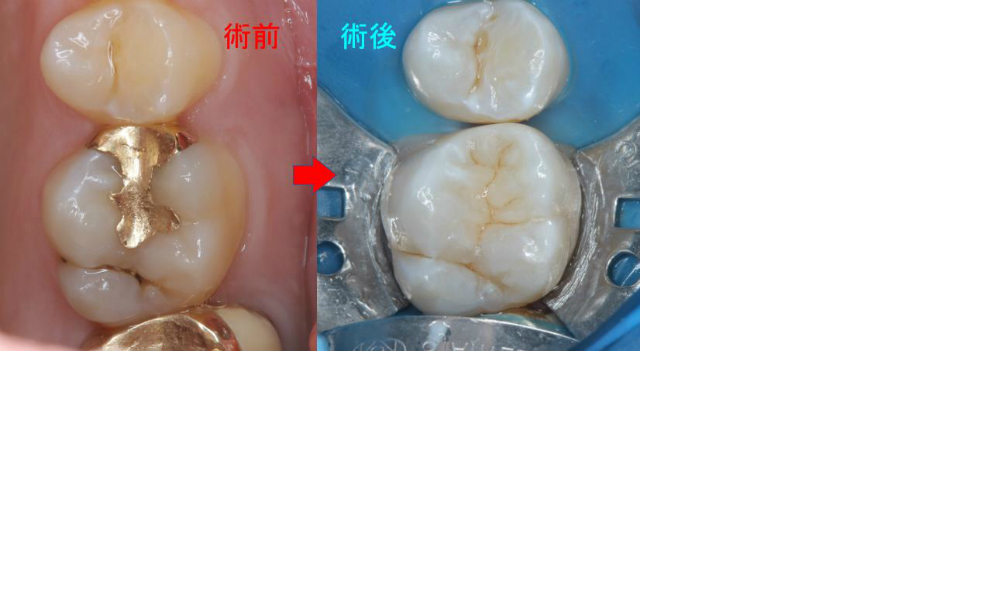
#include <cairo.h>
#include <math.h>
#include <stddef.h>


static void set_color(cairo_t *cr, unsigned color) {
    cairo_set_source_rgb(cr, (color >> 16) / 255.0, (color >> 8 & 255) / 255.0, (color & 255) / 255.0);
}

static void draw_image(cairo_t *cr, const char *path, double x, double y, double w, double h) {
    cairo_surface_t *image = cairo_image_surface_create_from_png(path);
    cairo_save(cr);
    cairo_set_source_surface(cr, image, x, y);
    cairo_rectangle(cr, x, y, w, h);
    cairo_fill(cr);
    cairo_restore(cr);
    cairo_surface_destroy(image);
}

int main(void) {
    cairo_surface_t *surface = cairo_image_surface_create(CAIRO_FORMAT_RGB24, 987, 592);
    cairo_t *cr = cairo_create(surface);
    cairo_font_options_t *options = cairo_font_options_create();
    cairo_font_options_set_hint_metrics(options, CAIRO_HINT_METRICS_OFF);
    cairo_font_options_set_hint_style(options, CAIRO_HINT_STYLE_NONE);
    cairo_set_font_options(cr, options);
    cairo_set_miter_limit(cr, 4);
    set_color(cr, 0xFFFFFF);
    cairo_paint(cr);
    draw_image(cr, "assets/img1.png", 0, 0, 640, 351);
    cairo_surface_write_to_png(surface, "output.png");
    cairo_font_options_destroy(options);
    cairo_destroy(cr);
    cairo_surface_destroy(surface);
    return 0;
}
